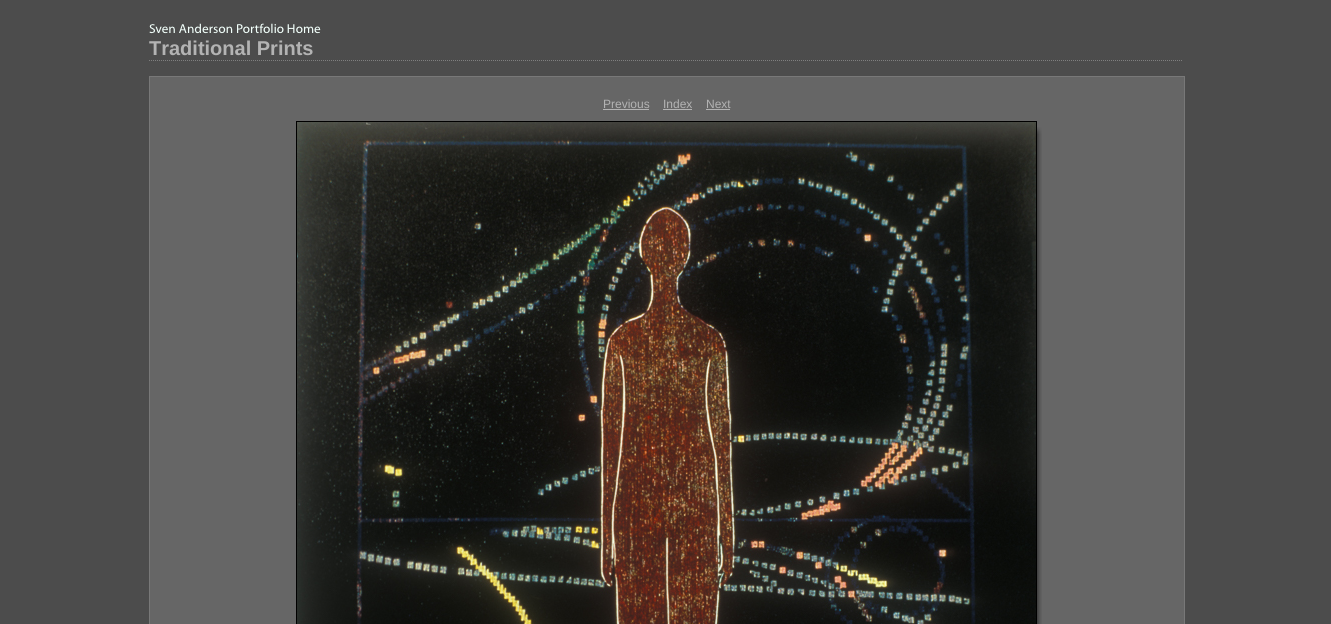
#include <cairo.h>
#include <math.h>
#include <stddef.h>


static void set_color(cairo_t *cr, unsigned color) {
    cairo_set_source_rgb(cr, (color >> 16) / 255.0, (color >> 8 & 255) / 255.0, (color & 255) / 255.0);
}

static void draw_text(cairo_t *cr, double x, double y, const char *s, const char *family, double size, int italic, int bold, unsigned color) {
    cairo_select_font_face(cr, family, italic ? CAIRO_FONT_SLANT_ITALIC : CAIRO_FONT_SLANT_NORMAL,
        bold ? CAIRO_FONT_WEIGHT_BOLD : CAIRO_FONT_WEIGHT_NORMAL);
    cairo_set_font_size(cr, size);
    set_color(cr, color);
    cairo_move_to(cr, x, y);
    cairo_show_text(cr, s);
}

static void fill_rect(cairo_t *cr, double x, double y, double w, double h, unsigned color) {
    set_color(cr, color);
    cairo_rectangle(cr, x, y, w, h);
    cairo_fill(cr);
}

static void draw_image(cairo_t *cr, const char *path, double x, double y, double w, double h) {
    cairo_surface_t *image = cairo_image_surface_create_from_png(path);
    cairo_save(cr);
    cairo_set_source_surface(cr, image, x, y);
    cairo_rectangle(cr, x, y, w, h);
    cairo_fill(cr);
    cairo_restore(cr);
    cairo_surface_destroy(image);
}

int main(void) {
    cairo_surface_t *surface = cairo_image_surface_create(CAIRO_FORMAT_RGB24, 1331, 624);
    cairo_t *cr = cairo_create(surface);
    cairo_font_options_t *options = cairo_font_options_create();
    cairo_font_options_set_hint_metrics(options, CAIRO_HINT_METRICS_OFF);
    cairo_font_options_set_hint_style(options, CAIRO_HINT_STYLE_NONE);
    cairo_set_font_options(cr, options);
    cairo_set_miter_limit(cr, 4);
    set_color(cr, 0x4C4C4C);
    cairo_paint(cr);
    draw_image(cr, "assets/img1.png", 149, 23, 172, 11);
    cairo_new_path(cr);
    cairo_move_to(cr, 149, 60.5);
    cairo_line_to(cr, 1183, 60.5);
    set_color(cr, 0x7F7F7F);
    cairo_set_line_width(cr, 1);
    cairo_set_dash(cr, (double[]){1, 1}, 2, 0);
    cairo_stroke(cr);
    draw_text(cr, 149, 55, "Traditional Prints", "Liberation Sans", 20, 0, 1, 0xB3B3B3);
    set_color(cr, 0x666666);
    cairo_rectangle(cr, 149.5, 76.5, 1035, 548);
    cairo_fill_preserve(cr);
    set_color(cr, 0x787878);
    cairo_set_dash(cr, NULL, 0, 0);
    cairo_stroke(cr);
    draw_text(cr, 603, 108, "Previous", "Liberation Sans", 12, 0, 0, 0xB3B3B3);
    fill_rect(cr, 603, 109, 46, 1, 0xB3B3B3);
    draw_text(cr, 663, 108, "Index", "Liberation Sans", 12, 0, 0, 0xB3B3B3);
    fill_rect(cr, 663, 109, 29, 1, 0xB3B3B3);
    draw_text(cr, 706, 108, "Next", "Liberation Sans", 12, 0, 0, 0xB3B3B3);
    fill_rect(cr, 706, 109, 24, 1, 0xB3B3B3);
    draw_image(cr, "assets/img2.png", 1037, 134, 5, 490);
    cairo_rectangle(cr, 296.5, 121.5, 740, 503);
    set_color(cr, 0x000000);
    cairo_stroke(cr);
    draw_image(cr, "assets/img3.png", 297, 122, 739, 502);
    draw_image(cr, "assets/img4.png", 1037, 127, 5, 7);
    cairo_surface_write_to_png(surface, "output.png");
    cairo_font_options_destroy(options);
    cairo_destroy(cr);
    cairo_surface_destroy(surface);
    return 0;
}
